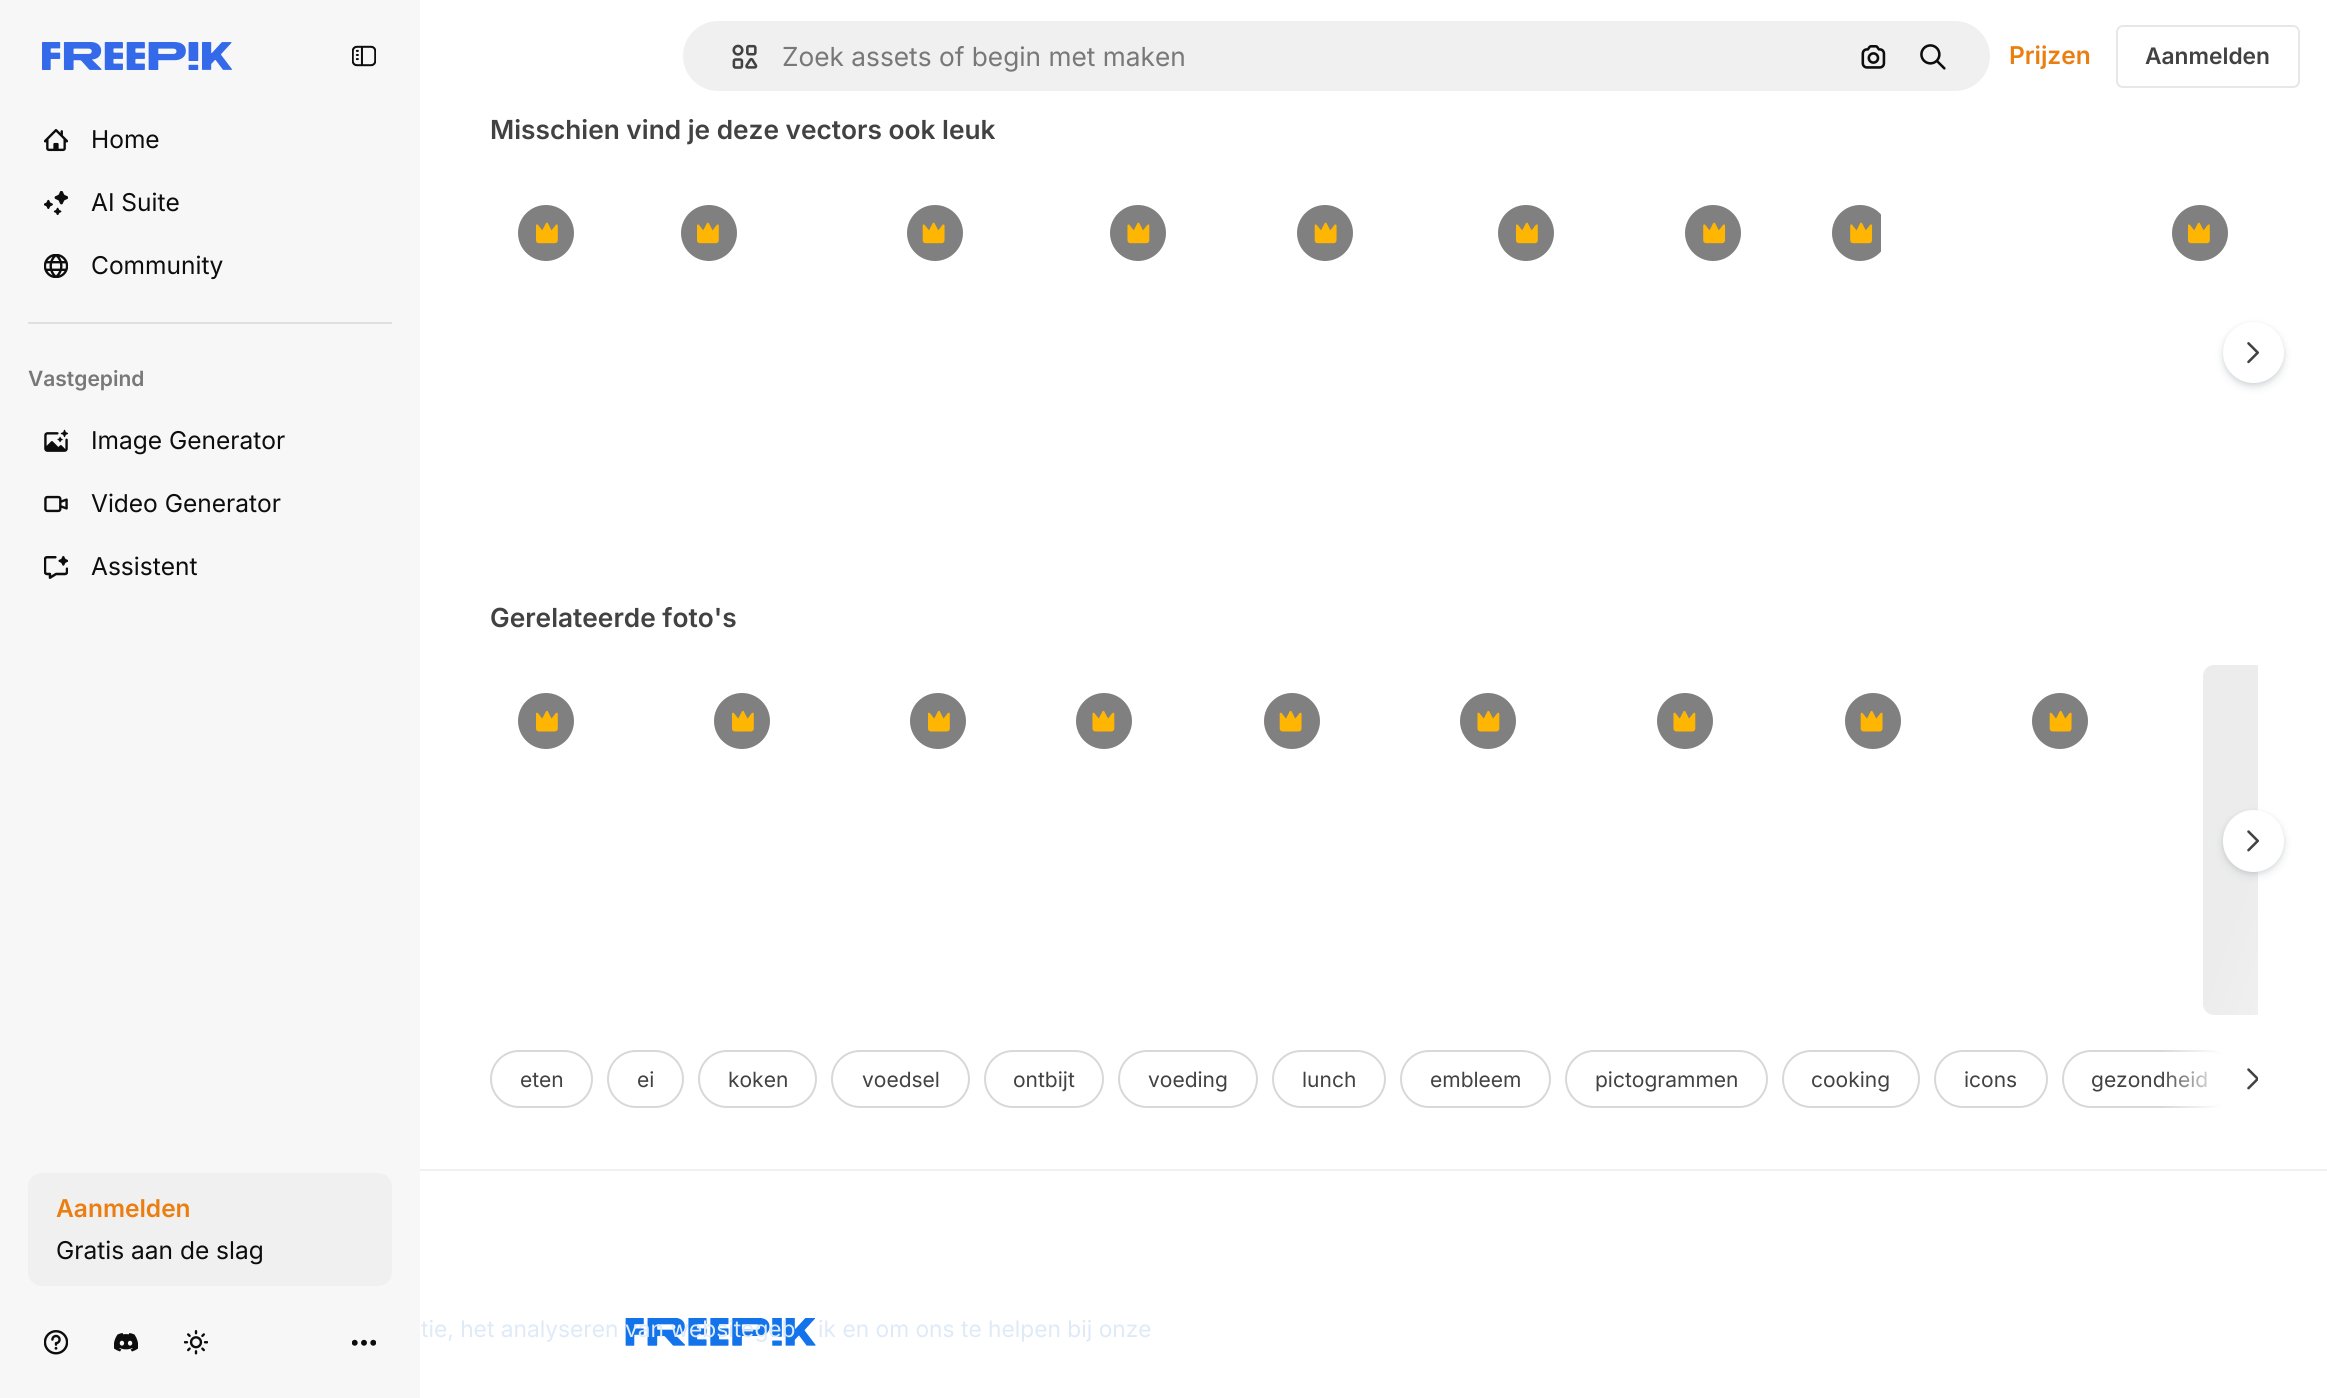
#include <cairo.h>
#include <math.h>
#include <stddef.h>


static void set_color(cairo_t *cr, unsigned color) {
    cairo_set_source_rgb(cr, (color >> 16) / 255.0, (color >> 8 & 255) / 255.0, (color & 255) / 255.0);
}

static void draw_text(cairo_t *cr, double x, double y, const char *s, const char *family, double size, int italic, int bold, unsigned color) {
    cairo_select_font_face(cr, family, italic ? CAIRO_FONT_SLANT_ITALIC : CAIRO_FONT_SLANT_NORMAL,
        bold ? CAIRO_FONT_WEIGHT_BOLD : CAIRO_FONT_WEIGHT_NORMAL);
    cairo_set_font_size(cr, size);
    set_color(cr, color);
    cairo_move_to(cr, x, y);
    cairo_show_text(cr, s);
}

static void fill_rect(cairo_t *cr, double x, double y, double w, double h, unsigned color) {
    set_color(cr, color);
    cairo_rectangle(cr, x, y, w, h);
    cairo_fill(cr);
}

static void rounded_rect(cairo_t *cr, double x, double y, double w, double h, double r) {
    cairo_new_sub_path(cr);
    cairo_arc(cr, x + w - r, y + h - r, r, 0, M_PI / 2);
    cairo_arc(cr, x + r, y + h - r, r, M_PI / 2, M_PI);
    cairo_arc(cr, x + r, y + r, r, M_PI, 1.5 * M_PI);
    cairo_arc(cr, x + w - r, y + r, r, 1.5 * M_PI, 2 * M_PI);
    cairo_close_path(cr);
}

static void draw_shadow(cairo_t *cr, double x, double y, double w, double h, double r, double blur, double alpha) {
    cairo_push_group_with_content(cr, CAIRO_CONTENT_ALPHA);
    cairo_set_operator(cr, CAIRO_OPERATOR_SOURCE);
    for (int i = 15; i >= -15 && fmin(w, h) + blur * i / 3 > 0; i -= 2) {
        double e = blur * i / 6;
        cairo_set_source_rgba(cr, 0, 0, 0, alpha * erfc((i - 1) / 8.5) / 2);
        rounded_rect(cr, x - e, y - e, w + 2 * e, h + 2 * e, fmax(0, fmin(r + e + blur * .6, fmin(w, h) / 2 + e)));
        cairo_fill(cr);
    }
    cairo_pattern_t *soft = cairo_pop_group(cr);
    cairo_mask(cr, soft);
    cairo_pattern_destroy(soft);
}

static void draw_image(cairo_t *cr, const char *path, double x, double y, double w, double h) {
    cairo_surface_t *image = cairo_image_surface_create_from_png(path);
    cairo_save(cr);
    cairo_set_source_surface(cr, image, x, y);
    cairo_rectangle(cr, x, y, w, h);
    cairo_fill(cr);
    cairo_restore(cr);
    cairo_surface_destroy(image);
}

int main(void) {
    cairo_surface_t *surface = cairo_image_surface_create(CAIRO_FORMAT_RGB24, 2327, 1398);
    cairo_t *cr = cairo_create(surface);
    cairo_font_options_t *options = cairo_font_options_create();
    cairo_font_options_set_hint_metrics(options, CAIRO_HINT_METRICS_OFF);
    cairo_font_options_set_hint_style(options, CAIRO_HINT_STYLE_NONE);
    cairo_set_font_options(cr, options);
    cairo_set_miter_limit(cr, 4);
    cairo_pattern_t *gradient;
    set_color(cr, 0xFFFFFF);
    cairo_paint(cr);
    fill_rect(cr, 0, 0, 420, 1398, 0xF7F7F7);
    draw_image(cr, "assets/img1.png", 42, 42, 190, 28);
    draw_image(cr, "assets/img2.png", 352, 45, 24, 22);
    draw_image(cr, "assets/img3.png", 44, 129, 24, 23);
    draw_text(cr, 91, 148, "Home", "Inter", 24.5, 0, 0, 0x0D0D0D);
    draw_image(cr, "assets/img4.png", 44, 191, 24, 24);
    draw_text(cr, 91, 211, "AI Suite", "Inter", 24.5, 0, 0, 0x0D0D0D);
    draw_image(cr, "assets/img5.png", 44, 254, 24, 24);
    draw_text(cr, 91, 274, "Community", "Inter", 24.5, 0, 0, 0x0D0D0D);
    fill_rect(cr, 28, 322, 364, 2, 0xE0E0E0);
    draw_text(cr, 28, 386, "Vastgepind", "Inter SemiBold", 21, 0, 0, 0x787878);
    draw_image(cr, "assets/img6.png", 44, 429, 24, 23);
    draw_text(cr, 91, 449, "Image Generator", "Inter", 24.5, 0, 0, 0x0D0D0D);
    draw_image(cr, "assets/img7.png", 44, 495, 24, 18);
    draw_text(cr, 91, 512, "Video Generator", "Inter", 24.5, 0, 0, 0x0D0D0D);
    draw_image(cr, "assets/img8.png", 44, 556, 24, 23);
    draw_text(cr, 91, 575, "Assistent", "Inter", 24.5, 0, 0, 0x0D0D0D);
    set_color(cr, 0xF0F0F0);
    rounded_rect(cr, 28, 1173, 364, 113, 14);
    cairo_fill(cr);
    draw_text(cr, 56, 1217, "Aanmelden", "Inter SemiBold", 24.5, 0, 0, 0xEA7E11);
    draw_text(cr, 56, 1259, "Gratis aan de slag", "Inter", 24.5, 0, 0, 0x0D0D0D);
    draw_image(cr, "assets/img9.png", 44, 1330, 24, 25);
    draw_image(cr, "assets/img10.png", 114, 1333, 24, 19);
    draw_image(cr, "assets/img11.png", 184, 1330, 24, 25);
    draw_image(cr, "assets/img12.png", 352, 1339, 24, 7);
    set_color(cr, 0xF0F0F0);
    rounded_rect(cr, 682, 20, 1309, 72, 36);
    cairo_fill_preserve(cr);
    set_color(cr, 0xFFFFFF);
    cairo_stroke(cr);
    draw_image(cr, "assets/img13.png", 732, 44, 26, 25);
    draw_text(cr, 782, 66, "Zoek assets of begin met maken", "Inter", 26.25, 0, 0, 0x787878);
    draw_image(cr, "assets/img14.png", 1861, 45, 25, 24);
    draw_image(cr, "assets/img15.png", 1920, 44, 26, 26);
    draw_text(cr, 2009, 64, "Prijzen", "Inter SemiBold", 24.5, 0, 0, 0xEA7E11);
    rounded_rect(cr, 2117, 26, 182, 61, 6);
    set_color(cr, 0xE7E7E7);
    cairo_stroke(cr);
    draw_text(cr, 2145, 64, "Aanmelden", "Inter SemiBold", 22.75, 0, 0, 0x424242);
    draw_text(cr, 490, 139, "Misschien vind je deze vectors ook leuk", "Inter SemiBold", 26.25, 0, 0, 0x424242);
    set_color(cr, 0x808080);
    cairo_new_path(cr);
    cairo_arc(cr, 546, 233, 28, 0, 2 * M_PI);
    cairo_fill(cr);
    draw_image(cr, "assets/img16.png", 536, 222, 22, 22);
    cairo_arc(cr, 709, 233, 28, 0, 2 * M_PI);
    cairo_fill(cr);
    draw_image(cr, "assets/img16.png", 697, 222, 22, 22);
    cairo_arc(cr, 935, 233, 28, 0, 2 * M_PI);
    cairo_fill(cr);
    draw_image(cr, "assets/img17.png", 922, 222, 23, 22);
    cairo_arc(cr, 1138, 233, 28, 0, 2 * M_PI);
    cairo_fill(cr);
    draw_image(cr, "assets/img18.png", 1127, 222, 23, 22);
    cairo_arc(cr, 1325, 233, 28, 0, 2 * M_PI);
    cairo_fill(cr);
    draw_image(cr, "assets/img17.png", 1314, 222, 23, 22);
    cairo_arc(cr, 1526, 233, 28, 0, 2 * M_PI);
    cairo_fill(cr);
    draw_image(cr, "assets/img16.png", 1516, 222, 22, 22);
    cairo_arc(cr, 1713, 233, 28, 0, 2 * M_PI);
    cairo_fill(cr);
    draw_image(cr, "assets/img19.png", 1703, 222, 23, 22);
    cairo_save(cr);
    rounded_rect(cr, 1804, 177, 77, 350, 28);
    cairo_clip(cr);
    cairo_arc(cr, 1860, 233, 28, 0, 2 * M_PI);
    cairo_fill(cr);
    cairo_restore(cr);
    draw_image(cr, "assets/img19.png", 1850, 222, 23, 22);
    cairo_arc(cr, 2200, 233, 28, 0, 2 * M_PI);
    cairo_fill(cr);
    draw_image(cr, "assets/img16.png", 2188, 222, 22, 22);
    set_color(cr, 0x374957);
    draw_shadow(cr, 2223, 326, 61, 61, 30.5, 4.5, 0.15);
    draw_shadow(cr, 2223, 324, 61, 61, 30.5, 2, 0.1);
    set_color(cr, 0xFFFFFF);
    cairo_arc(cr, 2253.5, 352.5, 30.5, 0, 2 * M_PI);
    cairo_fill(cr);
    draw_image(cr, "assets/img20.png", 2247, 342, 12, 22);
    draw_text(cr, 490, 627, "Gerelateerde foto's", "Inter SemiBold", 26.25, 0, 0, 0x424242);
    set_color(cr, 0x808080);
    cairo_new_path(cr);
    cairo_arc(cr, 546, 721, 28, 0, 2 * M_PI);
    cairo_fill(cr);
    draw_image(cr, "assets/img21.png", 536, 711, 22, 21);
    cairo_arc(cr, 742, 721, 28, 0, 2 * M_PI);
    cairo_fill(cr);
    draw_image(cr, "assets/img21.png", 732, 711, 22, 21);
    cairo_arc(cr, 938, 721, 28, 0, 2 * M_PI);
    cairo_fill(cr);
    draw_image(cr, "assets/img21.png", 928, 711, 22, 21);
    cairo_arc(cr, 1104, 721, 28, 0, 2 * M_PI);
    cairo_fill(cr);
    draw_image(cr, "assets/img22.png", 1092, 711, 23, 21);
    cairo_arc(cr, 1292, 721, 28, 0, 2 * M_PI);
    cairo_fill(cr);
    draw_image(cr, "assets/img23.png", 1279, 711, 23, 21);
    cairo_arc(cr, 1488, 721, 28, 0, 2 * M_PI);
    cairo_fill(cr);
    draw_image(cr, "assets/img22.png", 1477, 711, 23, 21);
    cairo_arc(cr, 1685, 721, 28, 0, 2 * M_PI);
    cairo_fill(cr);
    draw_image(cr, "assets/img22.png", 1673, 711, 23, 21);
    cairo_arc(cr, 1873, 721, 28, 0, 2 * M_PI);
    cairo_fill(cr);
    draw_image(cr, "assets/img23.png", 1860, 711, 23, 21);
    cairo_arc(cr, 2060, 721, 28, 0, 2 * M_PI);
    cairo_fill(cr);
    draw_image(cr, "assets/img23.png", 2049, 711, 23, 21);
    gradient = cairo_pattern_create_linear(2225, 605, 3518, 1075);
    cairo_pattern_add_color_stop_rgba(gradient, 0.08, 0.925, 0.925, 0.925, 1);
    cairo_pattern_add_color_stop_rgba(gradient, 0.18, 0.961, 0.961, 0.961, 1);
    cairo_pattern_add_color_stop_rgba(gradient, 0.33, 0.925, 0.925, 0.925, 1);
    cairo_set_source(cr, gradient);
    cairo_pattern_destroy(gradient);
    cairo_new_path(cr);
    cairo_move_to(cr, 2214, 665);
    cairo_line_to(cr, 2258, 665);
    cairo_line_to(cr, 2258, 1015);
    cairo_line_to(cr, 2214, 1015);
    cairo_curve_to(cr, 2208, 1015, 2203, 1010, 2203, 1004);
    cairo_line_to(cr, 2203, 676);
    cairo_curve_to(cr, 2203, 670, 2208, 665, 2214, 665);
    cairo_close_path(cr);
    cairo_fill(cr);
    set_color(cr, 0x374957);
    draw_shadow(cr, 2223, 814, 61, 61, 30.5, 4.5, 0.15);
    draw_shadow(cr, 2223, 812, 61, 61, 30.5, 2, 0.1);
    set_color(cr, 0xFFFFFF);
    rounded_rect(cr, 2223, 810, 61, 62, 30.5);
    cairo_fill(cr);
    draw_image(cr, "assets/img24.png", 2247, 830, 12, 22);
    rounded_rect(cr, 491, 1051, 101, 56, 28);
    set_color(cr, 0xD8D8D8);
    cairo_stroke(cr);
    draw_text(cr, 520, 1087, "eten", "Inter", 21, 0, 0, 0x424242);
    rounded_rect(cr, 608, 1051, 75, 56, 28);
    set_color(cr, 0xD8D8D8);
    cairo_stroke(cr);
    draw_text(cr, 637, 1087, "ei", "Inter", 21, 0, 0, 0x424242);
    rounded_rect(cr, 699, 1051, 117, 56, 28);
    set_color(cr, 0xD8D8D8);
    cairo_stroke(cr);
    draw_text(cr, 728, 1087, "koken", "Inter", 21, 0, 0, 0x424242);
    rounded_rect(cr, 832, 1051, 137, 56, 28);
    set_color(cr, 0xD8D8D8);
    cairo_stroke(cr);
    draw_text(cr, 862, 1087, "voedsel", "Inter", 21, 0, 0, 0x424242);
    rounded_rect(cr, 985, 1051, 118, 56, 28);
    set_color(cr, 0xD8D8D8);
    cairo_stroke(cr);
    draw_text(cr, 1013, 1087, "ontbijt", "Inter", 21, 0, 0, 0x424242);
    rounded_rect(cr, 1119, 1051, 138, 56, 28);
    set_color(cr, 0xD8D8D8);
    cairo_stroke(cr);
    draw_text(cr, 1148, 1087, "voeding", "Inter", 21, 0, 0, 0x424242);
    rounded_rect(cr, 1273, 1051, 112, 56, 28);
    set_color(cr, 0xD8D8D8);
    cairo_stroke(cr);
    draw_text(cr, 1302, 1087, "lunch", "Inter", 21, 0, 0, 0x424242);
    rounded_rect(cr, 1401, 1051, 149, 56, 28);
    set_color(cr, 0xD8D8D8);
    cairo_stroke(cr);
    draw_text(cr, 1430, 1087, "embleem", "Inter", 21, 0, 0, 0x424242);
    rounded_rect(cr, 1566, 1051, 201, 56, 28);
    set_color(cr, 0xD8D8D8);
    cairo_stroke(cr);
    draw_text(cr, 1595, 1087, "pictogrammen", "Inter", 21, 0, 0, 0x424242);
    rounded_rect(cr, 1783, 1051, 136, 56, 28);
    set_color(cr, 0xD8D8D8);
    cairo_stroke(cr);
    draw_text(cr, 1811, 1087, "cooking", "Inter", 21, 0, 0, 0x424242);
    rounded_rect(cr, 1935, 1051, 112, 56, 28);
    set_color(cr, 0xD8D8D8);
    cairo_stroke(cr);
    draw_text(cr, 1964, 1087, "icons", "Inter", 21, 0, 0, 0x424242);
    rounded_rect(cr, 2063, 1051, 174, 56, 28);
    set_color(cr, 0xD8D8D8);
    cairo_stroke(cr);
    draw_text(cr, 2091, 1087, "gezondheid", "Inter", 21, 0, 0, 0x424242);
    fill_rect(cr, 2223, 1053, 15, 52, 0xFFFFFF);
    gradient = cairo_pattern_create_linear(2223, 1079, 2161, 1079);
    cairo_pattern_add_color_stop_rgba(gradient, 0, 1, 1, 1, 1);
    cairo_pattern_add_color_stop_rgba(gradient, 1, 1, 1, 1, 0);
    cairo_set_source(cr, gradient);
    cairo_pattern_destroy(gradient);
    cairo_rectangle(cr, 2162, 1050, 61, 58);
    cairo_fill(cr);
    draw_image(cr, "assets/img25.png", 2247, 1068, 11, 22);
    fill_rect(cr, 420, 1169, 1907, 2, 0xF0F0F0);
    draw_image(cr, "assets/img26.png", 625, 1318, 191, 28);
    draw_text(cr, 421, 1337, "tie, het analyseren van websitegeb", "Inter", 22.75, 0, 0, 0xDFEAF8);
    draw_text(cr, 818, 1337, "ik en om ons te helpen bij onze", "Inter", 22.75, 0, 0, 0xDFEAF8);
    cairo_surface_write_to_png(surface, "output.png");
    cairo_font_options_destroy(options);
    cairo_destroy(cr);
    cairo_surface_destroy(surface);
    return 0;
}
